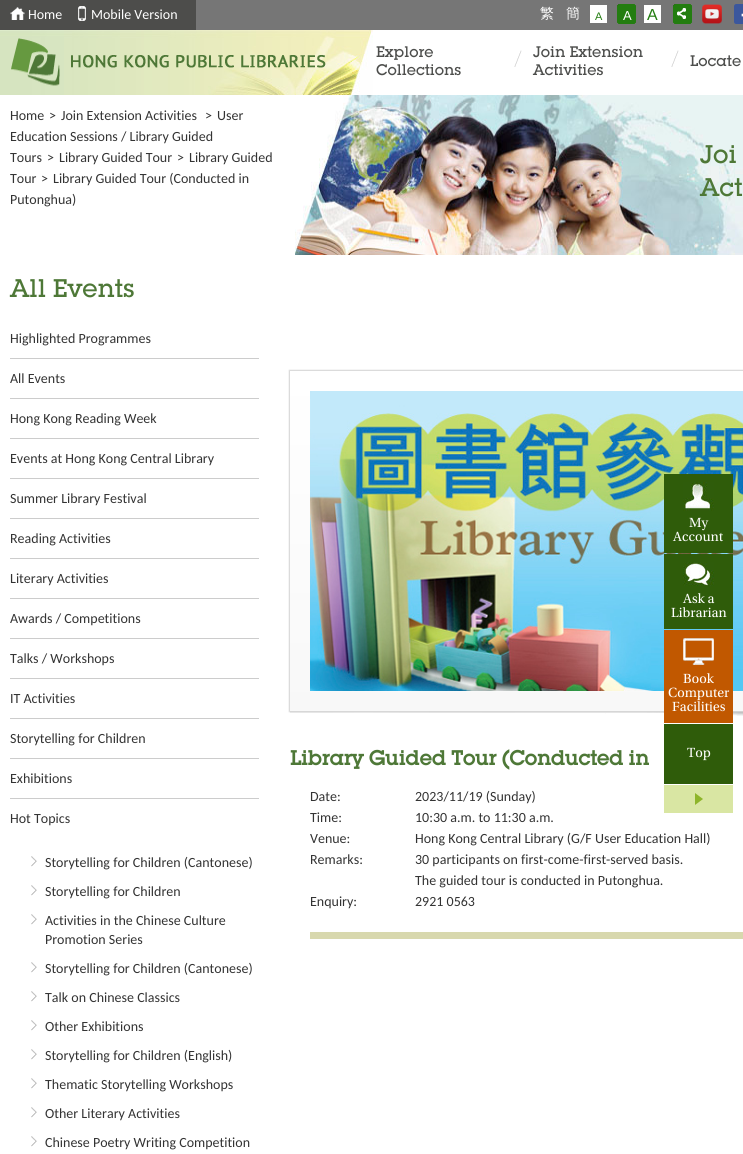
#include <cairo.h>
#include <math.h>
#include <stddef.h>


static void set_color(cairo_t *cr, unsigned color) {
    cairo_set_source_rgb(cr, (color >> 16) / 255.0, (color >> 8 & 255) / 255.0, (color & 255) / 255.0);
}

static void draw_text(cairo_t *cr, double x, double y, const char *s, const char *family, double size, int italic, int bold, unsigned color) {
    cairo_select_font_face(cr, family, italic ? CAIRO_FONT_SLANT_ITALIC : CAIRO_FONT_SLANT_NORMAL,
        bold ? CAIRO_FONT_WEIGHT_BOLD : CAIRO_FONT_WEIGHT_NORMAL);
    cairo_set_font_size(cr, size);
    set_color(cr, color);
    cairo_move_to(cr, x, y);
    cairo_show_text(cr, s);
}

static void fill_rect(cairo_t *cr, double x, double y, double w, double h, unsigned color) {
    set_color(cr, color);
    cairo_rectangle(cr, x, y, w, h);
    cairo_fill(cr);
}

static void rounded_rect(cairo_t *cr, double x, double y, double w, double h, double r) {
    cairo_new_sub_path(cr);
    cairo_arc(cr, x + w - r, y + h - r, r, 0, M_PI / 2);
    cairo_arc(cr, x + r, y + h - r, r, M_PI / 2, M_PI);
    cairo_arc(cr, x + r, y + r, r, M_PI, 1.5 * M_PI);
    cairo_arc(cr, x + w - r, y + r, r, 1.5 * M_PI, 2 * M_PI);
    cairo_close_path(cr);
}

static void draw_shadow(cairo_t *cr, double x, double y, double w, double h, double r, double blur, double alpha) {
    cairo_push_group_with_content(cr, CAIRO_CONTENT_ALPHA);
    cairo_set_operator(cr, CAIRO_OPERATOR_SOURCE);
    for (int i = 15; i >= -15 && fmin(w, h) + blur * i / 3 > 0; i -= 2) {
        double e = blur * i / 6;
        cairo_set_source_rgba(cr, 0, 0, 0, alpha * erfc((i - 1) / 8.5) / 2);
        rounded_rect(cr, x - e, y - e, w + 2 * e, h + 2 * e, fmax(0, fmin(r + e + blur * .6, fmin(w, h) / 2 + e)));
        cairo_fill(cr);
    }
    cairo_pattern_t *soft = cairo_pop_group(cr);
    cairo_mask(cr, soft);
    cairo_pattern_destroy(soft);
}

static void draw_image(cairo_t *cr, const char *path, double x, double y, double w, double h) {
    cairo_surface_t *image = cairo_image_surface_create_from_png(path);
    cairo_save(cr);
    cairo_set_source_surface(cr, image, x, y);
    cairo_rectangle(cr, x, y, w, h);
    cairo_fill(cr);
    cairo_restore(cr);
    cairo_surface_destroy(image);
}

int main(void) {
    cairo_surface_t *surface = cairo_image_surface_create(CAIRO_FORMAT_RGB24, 743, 1154);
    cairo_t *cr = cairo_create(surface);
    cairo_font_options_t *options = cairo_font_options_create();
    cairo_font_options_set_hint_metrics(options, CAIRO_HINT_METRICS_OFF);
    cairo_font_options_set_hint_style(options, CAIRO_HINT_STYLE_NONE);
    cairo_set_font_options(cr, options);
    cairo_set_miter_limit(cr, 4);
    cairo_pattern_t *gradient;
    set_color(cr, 0xFFFFFF);
    cairo_paint(cr);
    fill_rect(cr, 196, 0, 547, 30, 0x767676);
    fill_rect(cr, 0, 0, 196, 30, 0x4D4D4B);
    draw_image(cr, "assets/img1.png", 10, 7, 15, 13);
    draw_text(cr, 28, 19, "Home", "Carlito", 14, 0, 0, 0xFFFFFF);
    draw_image(cr, "assets/img2.png", 78, 6, 8, 15);
    draw_text(cr, 91, 19, "Mobile Version", "Carlito", 14, 0, 0, 0xFFFFFF);
    draw_text(cr, 540, 18, "繁", "WenQuanYi Zen Hei Medium", 14, 0, 0, 0xFFFFFF);
    draw_text(cr, 566, 18, "簡", "WenQuanYi Zen Hei Medium", 14, 0, 0, 0xFFFFFF);
    fill_rect(cr, 590, 5, 17, 18, 0xFFFFFF);
    draw_text(cr, 595, 20, "A", "Liberation Sans", 11, 0, 0, 0x237D10);
    draw_image(cr, "assets/img3.png", 617, 4, 19, 20);
    draw_text(cr, 623, 20, "A", "Liberation Sans", 13, 0, 0, 0xFFFFFF);
    fill_rect(cr, 644, 5, 17, 18, 0xFFFFFF);
    draw_text(cr, 647, 20, "A", "Liberation Sans", 16, 0, 0, 0x237D10);
    draw_image(cr, "assets/img3.png", 673, 4, 19, 20);
    draw_image(cr, "assets/img4.png", 677, 8, 9, 11);
    draw_image(cr, "assets/img5.png", 702, 4, 20, 20);
    draw_image(cr, "assets/img6.png", 734, 4, 9, 20);
    draw_image(cr, "assets/img7.png", 0, 30, 373, 65);
    draw_image(cr, "assets/img8.png", 11, 38, 49, 48);
    draw_image(cr, "assets/img9.png", 71, 55, 255, 13);
    draw_text(cr, 376, 57, "Explore", "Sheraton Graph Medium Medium", 15, 1, 0, 0x4D4E4C);
    draw_text(cr, 376, 75, "Collections", "Sheraton Graph Medium Medium", 15, 1, 0, 0x4D4E4C);
    draw_image(cr, "assets/img10.png", 514, 50, 8, 17);
    draw_text(cr, 533, 57, "Join Extension", "Sheraton Graph Medium Medium", 15, 1, 0, 0x4D4E4C);
    draw_text(cr, 533, 75, "Activities", "Sheraton Graph Medium Medium", 15, 1, 0, 0x4D4E4C);
    draw_image(cr, "assets/img10.png", 671, 50, 8, 17);
    draw_text(cr, 690, 66, "Locate", "Sheraton Graph Medium Medium", 15, 1, 0, 0x4D4E4C);
    draw_text(cr, 10, 120, "Home", "Carlito", 14, 0, 0, 0x333333);
    draw_text(cr, 49, 120, ">", "Carlito", 14, 0, 0, 0x333333);
    draw_text(cr, 61, 120, "Join Extension Activities", "Carlito", 14, 0, 0, 0x333333);
    draw_text(cr, 205, 120, ">", "Carlito", 14, 0, 0, 0x333333);
    draw_text(cr, 217, 120, "User", "Carlito", 14, 0, 0, 0x333333);
    draw_text(cr, 10, 141, "Education Sessions / Library Guided", "Carlito", 14, 0, 0, 0x333333);
    draw_text(cr, 10, 162, "Tours", "Carlito", 14, 0, 0, 0x333333);
    draw_text(cr, 47, 162, ">", "Carlito", 14, 0, 0, 0x333333);
    draw_text(cr, 59, 162, "Library Guided Tour", "Carlito", 14, 0, 0, 0x333333);
    draw_text(cr, 177, 162, ">", "Carlito", 14, 0, 0, 0x333333);
    draw_text(cr, 189, 162, "Library Guided", "Carlito", 14, 0, 0, 0x333333);
    draw_text(cr, 10, 183, "Tour", "Carlito", 14, 0, 0, 0x333333);
    draw_text(cr, 41, 183, ">", "Carlito", 14, 0, 0, 0x333333);
    draw_text(cr, 53, 183, "Library Guided Tour (Conducted in", "Carlito", 14, 0, 0, 0x333333);
    draw_text(cr, 10, 204, "Putonghua)", "Carlito", 14, 0, 0, 0x333333);
    draw_image(cr, "assets/img11.png", 295, 95, 448, 160);
    draw_text(cr, 700, 163, "Joi", "Sheraton Graph Medium Medium", 25, 1, 0, 0x4E7837);
    draw_text(cr, 700, 196, "Act", "Sheraton Graph Medium Medium", 25, 1, 0, 0x4E7837);
    draw_text(cr, 10, 297, "All Events", "Sheraton Graph Medium Medium", 25, 1, 0, 0x4E7837);
    fill_rect(cr, 10, 358, 249, 1, 0xCCCCCC);
    draw_text(cr, 10, 343, "Highlighted Programmes", "Carlito", 14, 0, 0, 0x333333);
    fill_rect(cr, 10, 398, 249, 1, 0xCCCCCC);
    draw_text(cr, 10, 383, "All Events", "Carlito", 14, 0, 0, 0x333333);
    fill_rect(cr, 10, 438, 249, 1, 0xCCCCCC);
    draw_text(cr, 10, 423, "Hong Kong Reading Week", "Carlito", 14, 0, 0, 0x333333);
    fill_rect(cr, 10, 478, 249, 1, 0xCCCCCC);
    draw_text(cr, 10, 463, "Events at Hong Kong Central Library", "Carlito", 14, 0, 0, 0x333333);
    fill_rect(cr, 10, 518, 249, 1, 0xCCCCCC);
    draw_text(cr, 10, 503, "Summer Library Festival", "Carlito", 14, 0, 0, 0x333333);
    fill_rect(cr, 10, 558, 249, 1, 0xCCCCCC);
    draw_text(cr, 10, 543, "Reading Activities", "Carlito", 14, 0, 0, 0x333333);
    fill_rect(cr, 10, 598, 249, 1, 0xCCCCCC);
    draw_text(cr, 10, 583, "Literary Activities", "Carlito", 14, 0, 0, 0x333333);
    fill_rect(cr, 10, 638, 249, 1, 0xCCCCCC);
    draw_text(cr, 10, 623, "Awards / Competitions", "Carlito", 14, 0, 0, 0x333333);
    fill_rect(cr, 10, 678, 249, 1, 0xCCCCCC);
    draw_text(cr, 10, 663, "Talks / Workshops", "Carlito", 14, 0, 0, 0x333333);
    fill_rect(cr, 10, 718, 249, 1, 0xCCCCCC);
    draw_text(cr, 10, 703, "IT Activities", "Carlito", 14, 0, 0, 0x333333);
    fill_rect(cr, 10, 758, 249, 1, 0xCCCCCC);
    draw_text(cr, 10, 743, "Storytelling for Children", "Carlito", 14, 0, 0, 0x333333);
    fill_rect(cr, 10, 798, 249, 1, 0xCCCCCC);
    draw_text(cr, 10, 783, "Exhibitions", "Carlito", 14, 0, 0, 0x333333);
    draw_text(cr, 10, 823, "Hot Topics", "Carlito", 14, 0, 0, 0x333333);
    draw_image(cr, "assets/img12.png", 31, 856, 6, 11);
    draw_text(cr, 45, 867, "Storytelling for Children (Cantonese)", "Carlito", 14, 0, 0, 0x333333);
    draw_image(cr, "assets/img12.png", 31, 885, 6, 11);
    draw_text(cr, 45, 896, "Storytelling for Children", "Carlito", 14, 0, 0, 0x333333);
    draw_image(cr, "assets/img12.png", 31, 914, 6, 11);
    draw_text(cr, 45, 925, "Activities in the Chinese Culture", "Carlito", 14, 0, 0, 0x333333);
    draw_text(cr, 45, 944, "Promotion Series", "Carlito", 14, 0, 0, 0x333333);
    draw_image(cr, "assets/img12.png", 31, 962, 6, 11);
    draw_text(cr, 45, 973, "Storytelling for Children (Cantonese)", "Carlito", 14, 0, 0, 0x333333);
    draw_image(cr, "assets/img12.png", 31, 991, 6, 11);
    draw_text(cr, 45, 1002, "Talk on Chinese Classics", "Carlito", 14, 0, 0, 0x333333);
    draw_image(cr, "assets/img12.png", 31, 1020, 6, 11);
    draw_text(cr, 45, 1031, "Other Exhibitions", "Carlito", 14, 0, 0, 0x333333);
    draw_image(cr, "assets/img12.png", 31, 1049, 6, 11);
    draw_text(cr, 45, 1060, "Storytelling for Children (English)", "Carlito", 14, 0, 0, 0x333333);
    draw_image(cr, "assets/img12.png", 31, 1078, 6, 11);
    draw_text(cr, 45, 1089, "Thematic Storytelling Workshops", "Carlito", 14, 0, 0, 0x333333);
    draw_image(cr, "assets/img12.png", 31, 1107, 6, 11);
    draw_text(cr, 45, 1118, "Other Literary Activities", "Carlito", 14, 0, 0, 0x333333);
    draw_image(cr, "assets/img12.png", 31, 1136, 6, 11);
    draw_text(cr, 45, 1147, "Chinese Poetry Writing Competition", "Carlito", 14, 0, 0, 0x333333);
    draw_image(cr, "assets/img13.png", 290, 711, 453, 5);
    set_color(cr, 0xD6D6D6);
    draw_shadow(cr, 289, 370, 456, 342, 0, 0.5, 1);
    gradient = cairo_pattern_create_linear(630, 371, 630, 711);
    cairo_pattern_add_color_stop_rgba(gradient, 0, 1, 1, 1, 1);
    cairo_pattern_add_color_stop_rgba(gradient, 1, 0.973, 0.973, 0.973, 1);
    cairo_set_source(cr, gradient);
    cairo_pattern_destroy(gradient);
    cairo_rectangle(cr, 290, 371, 453, 340);
    cairo_fill(cr);
    draw_image(cr, "assets/img14.png", 310, 391, 433, 300);
    draw_text(cr, 290, 765, "Library Guided Tour (Conducted in", "Sheraton Graph Medium", 20, 1, 1, 0x4E7837);
    fill_rect(cr, 310, 932, 433, 7, 0xD8D8AE);
    draw_text(cr, 310, 801, "Date:", "Carlito", 14, 0, 0, 0x333333);
    draw_text(cr, 415, 801, "2023/11/19 (Sunday)", "Carlito", 14, 0, 0, 0x333333);
    draw_text(cr, 310, 822, "Time:", "Carlito", 14, 0, 0, 0x333333);
    draw_text(cr, 415, 822, "10:30 a.m. to 11:30 a.m.", "Carlito", 14, 0, 0, 0x333333);
    draw_text(cr, 310, 843, "Venue:", "Carlito", 14, 0, 0, 0x333333);
    draw_text(cr, 415, 843, "Hong Kong Central Library (G/F User Education Hall)", "Carlito", 14, 0, 0, 0x333333);
    draw_text(cr, 310, 864, "Remarks:", "Carlito", 14, 0, 0, 0x333333);
    draw_text(cr, 415, 864, "30 participants on first-come-first-served basis.", "Carlito", 14, 0, 0, 0x333333);
    draw_text(cr, 415, 885, "The guided tour is conducted in Putonghua.", "Carlito", 14, 0, 0, 0x333333);
    draw_text(cr, 310, 906, "Enquiry:", "Carlito", 14, 0, 0, 0x333333);
    draw_text(cr, 415, 906, "2921 0563", "Carlito", 14, 0, 0, 0x333333);
    fill_rect(cr, 664, 474, 69, 79, 0x2F5C0A);
    draw_image(cr, "assets/img15.png", 683, 482, 31, 29);
    draw_image(cr, "assets/img16.png", 689, 517, 20, 14);
    draw_image(cr, "assets/img17.png", 672, 531, 51, 11);
    fill_rect(cr, 664, 554, 69, 75, 0x2F5C0A);
    draw_image(cr, "assets/img18.png", 683, 562, 31, 24);
    draw_image(cr, "assets/img19.png", 682, 593, 33, 11);
    draw_image(cr, "assets/img20.png", 671, 607, 56, 11);
    fill_rect(cr, 664, 630, 69, 93, 0xC15800);
    draw_image(cr, "assets/img21.png", 683, 638, 31, 27);
    draw_image(cr, "assets/img22.png", 683, 673, 31, 11);
    draw_image(cr, "assets/img23.png", 668, 687, 62, 14);
    draw_image(cr, "assets/img24.png", 672, 701, 53, 11);
    fill_rect(cr, 664, 724, 69, 60, 0x2F5C0A);
    draw_image(cr, "assets/img25.png", 687, 747, 24, 14);
    fill_rect(cr, 664, 785, 69, 28, 0xD9E6A3);
    set_color(cr, 0x8EB52A);
    cairo_new_path(cr);
    cairo_move_to(cr, 695, 805);
    cairo_line_to(cr, 695, 793);
    cairo_line_to(cr, 703, 799);
    cairo_close_path(cr);
    cairo_fill(cr);
    cairo_surface_write_to_png(surface, "output.png");
    cairo_font_options_destroy(options);
    cairo_destroy(cr);
    cairo_surface_destroy(surface);
    return 0;
}
